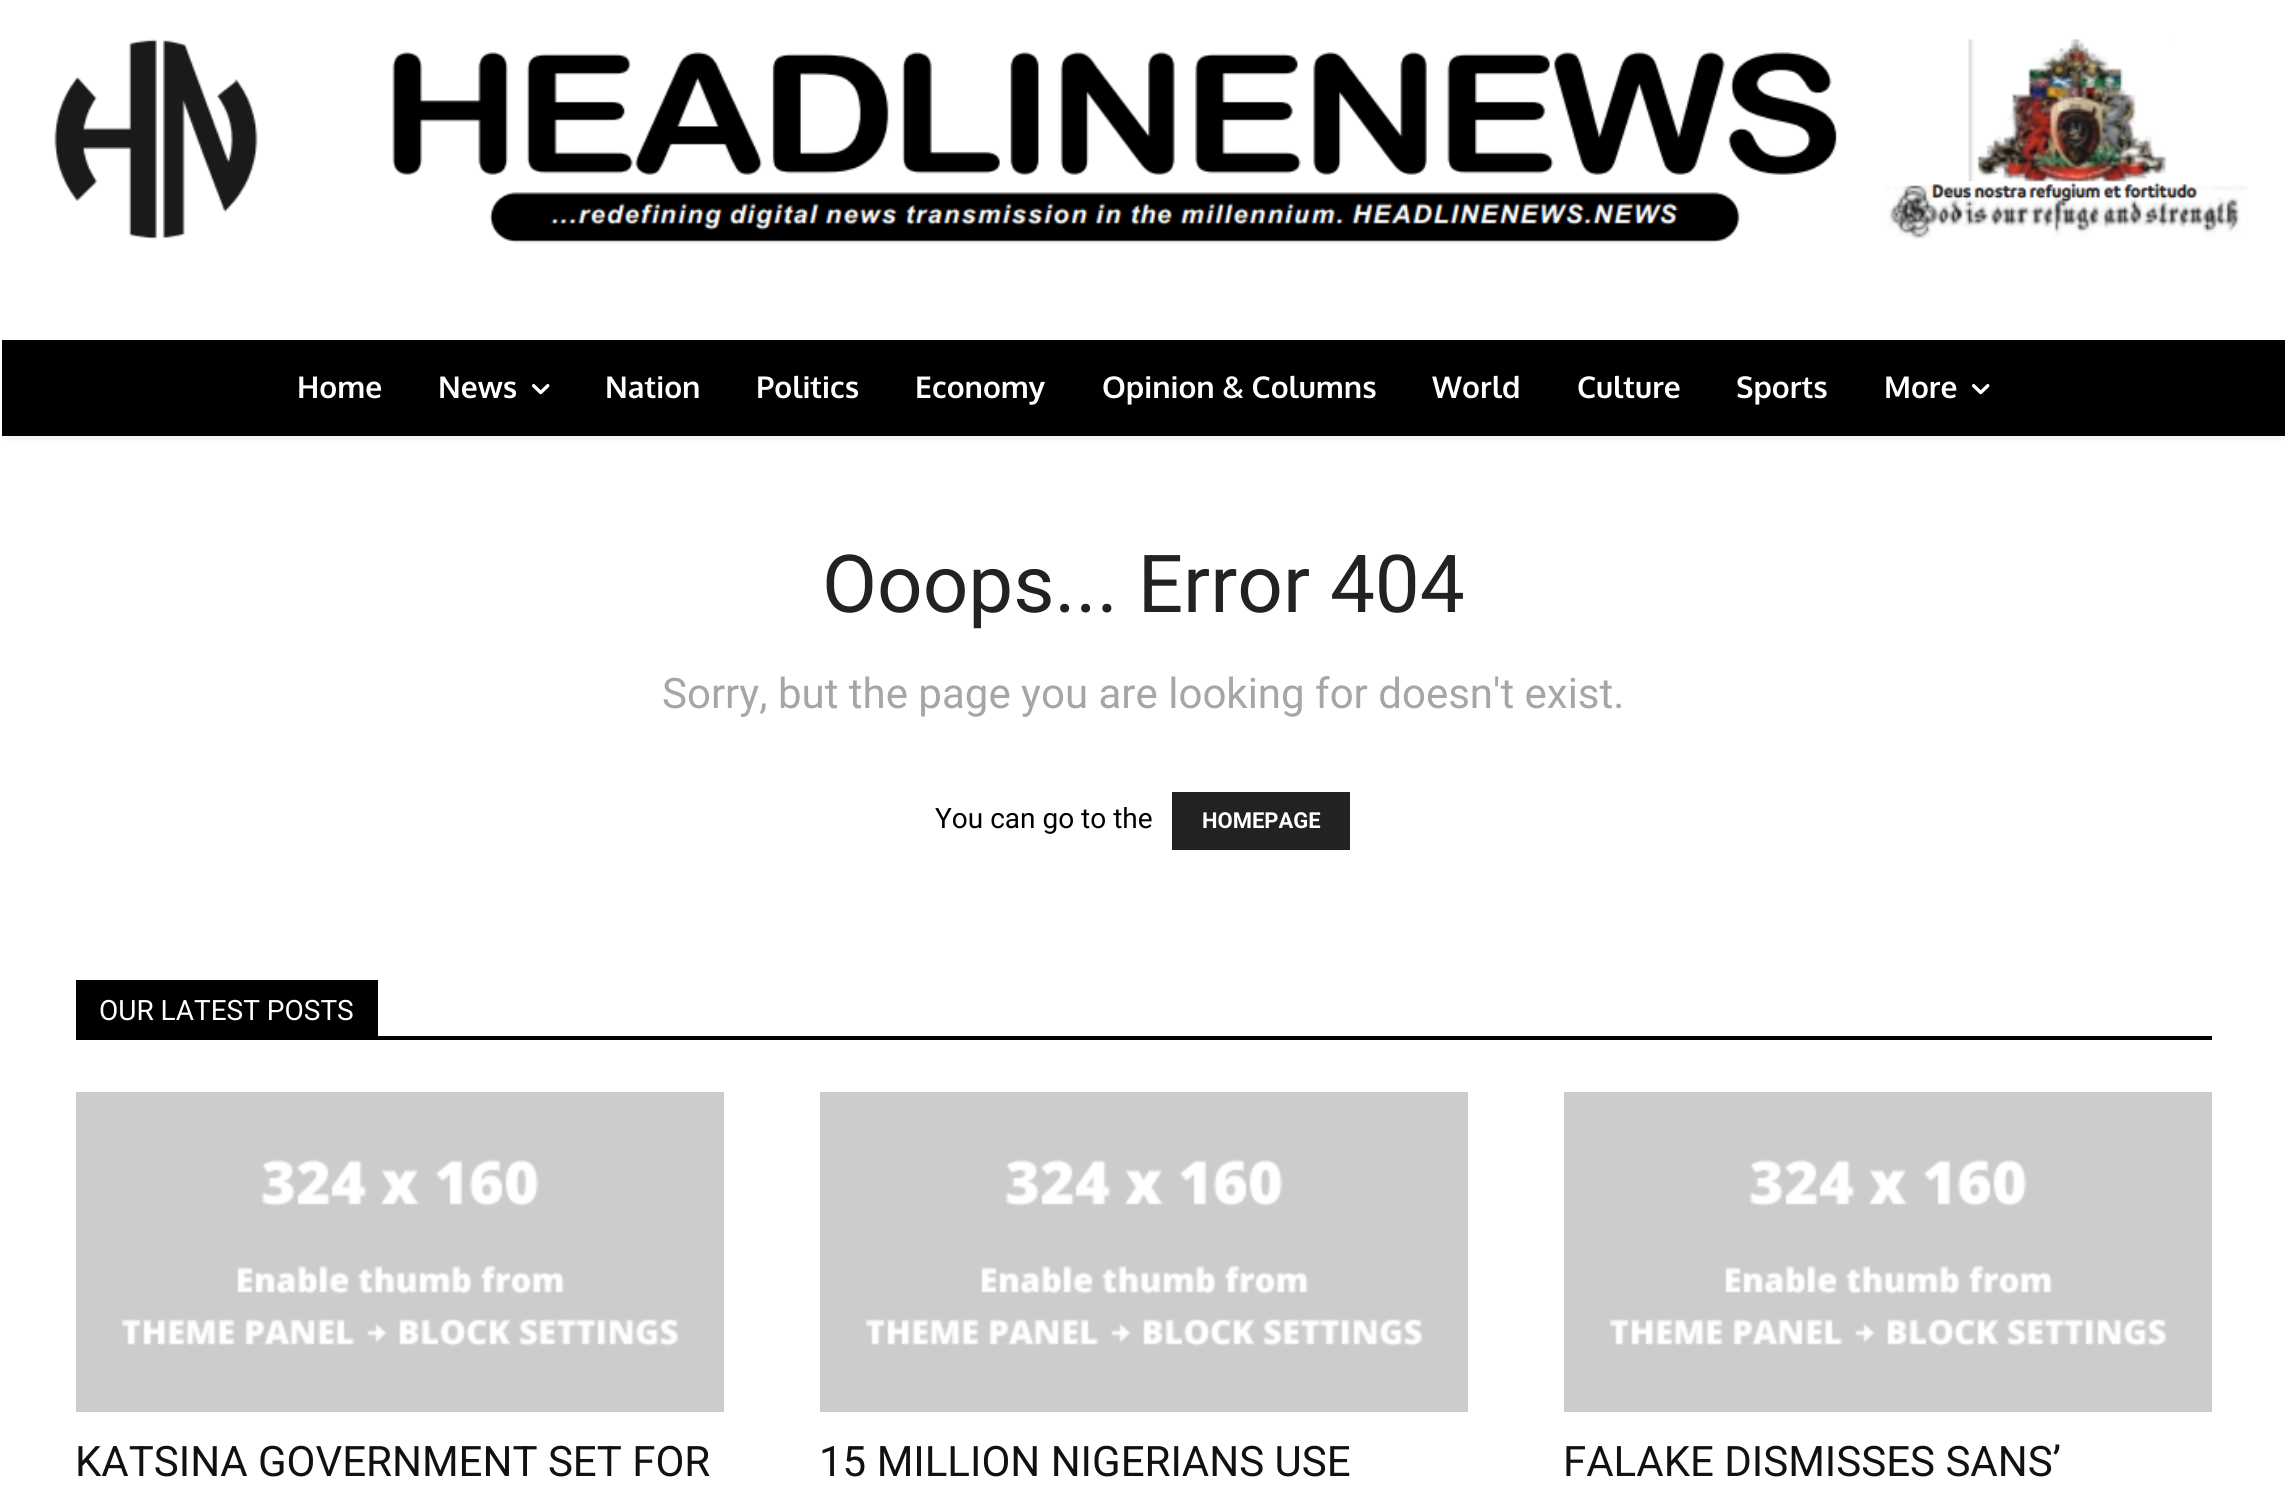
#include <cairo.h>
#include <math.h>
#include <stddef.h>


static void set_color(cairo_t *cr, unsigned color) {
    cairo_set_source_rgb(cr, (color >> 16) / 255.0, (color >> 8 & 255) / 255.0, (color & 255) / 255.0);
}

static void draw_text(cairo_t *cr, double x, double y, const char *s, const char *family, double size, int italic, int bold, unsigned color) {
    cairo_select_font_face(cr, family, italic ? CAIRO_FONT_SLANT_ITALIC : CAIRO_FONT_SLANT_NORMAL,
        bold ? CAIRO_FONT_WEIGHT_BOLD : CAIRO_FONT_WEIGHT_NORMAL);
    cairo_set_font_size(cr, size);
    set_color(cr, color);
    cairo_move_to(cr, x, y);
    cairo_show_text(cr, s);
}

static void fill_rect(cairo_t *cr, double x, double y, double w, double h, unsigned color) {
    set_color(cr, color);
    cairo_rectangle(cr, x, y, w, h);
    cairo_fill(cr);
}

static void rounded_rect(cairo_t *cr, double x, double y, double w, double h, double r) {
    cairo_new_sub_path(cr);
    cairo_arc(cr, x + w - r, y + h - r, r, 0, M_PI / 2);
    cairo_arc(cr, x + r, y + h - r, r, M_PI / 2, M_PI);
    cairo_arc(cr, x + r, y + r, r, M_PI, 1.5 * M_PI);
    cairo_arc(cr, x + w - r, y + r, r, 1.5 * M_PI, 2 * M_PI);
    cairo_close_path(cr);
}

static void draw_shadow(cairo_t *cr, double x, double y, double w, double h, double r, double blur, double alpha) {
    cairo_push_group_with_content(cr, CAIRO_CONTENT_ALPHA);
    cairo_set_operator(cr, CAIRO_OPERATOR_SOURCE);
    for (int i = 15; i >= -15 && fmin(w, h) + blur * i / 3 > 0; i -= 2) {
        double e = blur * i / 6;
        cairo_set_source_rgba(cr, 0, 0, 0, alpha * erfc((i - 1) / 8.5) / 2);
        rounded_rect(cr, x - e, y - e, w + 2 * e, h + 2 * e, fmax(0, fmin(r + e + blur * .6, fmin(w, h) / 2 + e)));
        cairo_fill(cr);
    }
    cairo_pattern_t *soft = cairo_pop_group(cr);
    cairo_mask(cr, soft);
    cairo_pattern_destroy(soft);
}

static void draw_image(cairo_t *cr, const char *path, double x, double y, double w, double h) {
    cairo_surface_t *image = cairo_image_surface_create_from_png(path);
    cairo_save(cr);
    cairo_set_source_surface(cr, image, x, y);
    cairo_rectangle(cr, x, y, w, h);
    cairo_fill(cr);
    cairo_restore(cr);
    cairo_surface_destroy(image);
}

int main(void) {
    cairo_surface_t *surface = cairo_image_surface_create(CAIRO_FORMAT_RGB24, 2285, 1501);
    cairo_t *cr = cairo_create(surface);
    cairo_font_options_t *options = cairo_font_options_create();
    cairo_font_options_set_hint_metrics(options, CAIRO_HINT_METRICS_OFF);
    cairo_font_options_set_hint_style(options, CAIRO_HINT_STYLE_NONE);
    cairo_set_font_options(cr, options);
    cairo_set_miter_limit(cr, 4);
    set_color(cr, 0xFFFFFF);
    cairo_paint(cr);
    draw_image(cr, "assets/img1.png", 54, 39, 2194, 204);
    fill_rect(cr, 2, 340, 2283, 96, 0x000000);
    cairo_save(cr);
    cairo_rectangle(cr, 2, 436, 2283, 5);
    cairo_clip(cr);
    set_color(cr, 0x000000);
    draw_shadow(cr, 2, 344, 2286, 96, 0, 3, 0.05);
    cairo_restore(cr);
    draw_text(cr, 297, 398, "Home", "Oxygen", 30, 0, 1, 0xFFFFFF);
    draw_text(cr, 438, 398, "News", "Oxygen", 30, 0, 1, 0xFFFFFF);
    draw_image(cr, "assets/img2.png", 532, 384, 18, 11);
    draw_text(cr, 605, 398, "Nation", "Oxygen", 30, 0, 1, 0xFFFFFF);
    draw_text(cr, 756, 398, "Politics", "Oxygen", 30, 0, 1, 0xFFFFFF);
    draw_text(cr, 915, 398, "Economy", "Oxygen", 30, 0, 1, 0xFFFFFF);
    draw_text(cr, 1102, 398, "Opinion & Columns", "Oxygen", 30, 0, 1, 0xFFFFFF);
    draw_text(cr, 1432, 398, "World", "Oxygen", 30, 0, 1, 0xFFFFFF);
    draw_text(cr, 1577, 398, "Culture", "Oxygen", 30, 0, 1, 0xFFFFFF);
    draw_text(cr, 1736, 398, "Sports", "Oxygen", 30, 0, 1, 0xFFFFFF);
    draw_text(cr, 1884, 398, "More", "Oxygen", 30, 0, 1, 0xFFFFFF);
    draw_image(cr, "assets/img2.png", 1972, 384, 18, 11);
    draw_text(cr, 822, 612, "Ooops... Error 404", "Roboto", 80, 0, 0, 0x222222);
    draw_text(cr, 662, 708, "Sorry, but the page you are looking for doesn't exist.", "Roboto", 42, 0, 0, 0xA6A6A6);
    draw_text(cr, 935, 828, "You can go to the", "Roboto", 28, 0, 0, 0x000000);
    fill_rect(cr, 1172, 792, 178, 58, 0x222222);
    draw_text(cr, 1202, 828, "HOMEPAGE", "Roboto", 22, 0, 1, 0xFFFFFF);
    fill_rect(cr, 76, 1036, 2136, 4, 0x000000);
    fill_rect(cr, 76, 980, 302, 56, 0x000000);
    draw_text(cr, 99, 1020, "OUR LATEST POSTS", "Roboto", 28, 0, 0, 0xFFFFFF);
    draw_image(cr, "assets/img3.png", 76, 1092, 648, 320);
    draw_text(cr, 75, 1476, "KATSINA GOVERNMENT SET FOR", "Roboto", 42, 0, 0, 0x111111);
    draw_image(cr, "assets/img3.png", 820, 1092, 648, 320);
    draw_text(cr, 819, 1476, "15 MILLION NIGERIANS USE", "Roboto", 42, 0, 0, 0x111111);
    draw_image(cr, "assets/img3.png", 1564, 1092, 648, 320);
    draw_text(cr, 1563, 1476, "FALAKE DISMISSES SANS’", "Roboto", 42, 0, 0, 0x111111);
    cairo_surface_write_to_png(surface, "output.png");
    cairo_font_options_destroy(options);
    cairo_destroy(cr);
    cairo_surface_destroy(surface);
    return 0;
}
